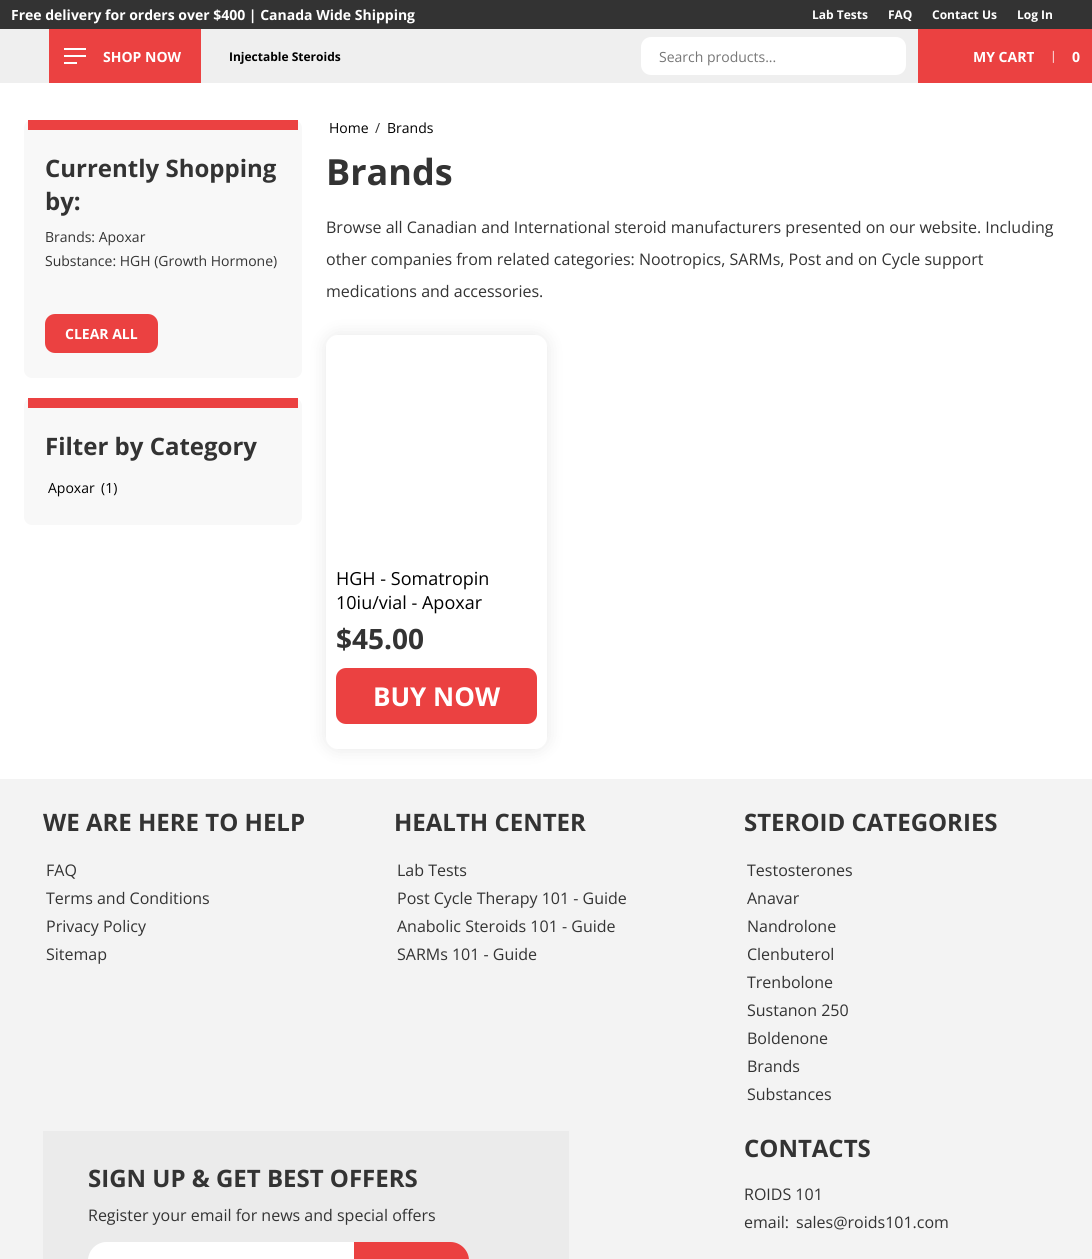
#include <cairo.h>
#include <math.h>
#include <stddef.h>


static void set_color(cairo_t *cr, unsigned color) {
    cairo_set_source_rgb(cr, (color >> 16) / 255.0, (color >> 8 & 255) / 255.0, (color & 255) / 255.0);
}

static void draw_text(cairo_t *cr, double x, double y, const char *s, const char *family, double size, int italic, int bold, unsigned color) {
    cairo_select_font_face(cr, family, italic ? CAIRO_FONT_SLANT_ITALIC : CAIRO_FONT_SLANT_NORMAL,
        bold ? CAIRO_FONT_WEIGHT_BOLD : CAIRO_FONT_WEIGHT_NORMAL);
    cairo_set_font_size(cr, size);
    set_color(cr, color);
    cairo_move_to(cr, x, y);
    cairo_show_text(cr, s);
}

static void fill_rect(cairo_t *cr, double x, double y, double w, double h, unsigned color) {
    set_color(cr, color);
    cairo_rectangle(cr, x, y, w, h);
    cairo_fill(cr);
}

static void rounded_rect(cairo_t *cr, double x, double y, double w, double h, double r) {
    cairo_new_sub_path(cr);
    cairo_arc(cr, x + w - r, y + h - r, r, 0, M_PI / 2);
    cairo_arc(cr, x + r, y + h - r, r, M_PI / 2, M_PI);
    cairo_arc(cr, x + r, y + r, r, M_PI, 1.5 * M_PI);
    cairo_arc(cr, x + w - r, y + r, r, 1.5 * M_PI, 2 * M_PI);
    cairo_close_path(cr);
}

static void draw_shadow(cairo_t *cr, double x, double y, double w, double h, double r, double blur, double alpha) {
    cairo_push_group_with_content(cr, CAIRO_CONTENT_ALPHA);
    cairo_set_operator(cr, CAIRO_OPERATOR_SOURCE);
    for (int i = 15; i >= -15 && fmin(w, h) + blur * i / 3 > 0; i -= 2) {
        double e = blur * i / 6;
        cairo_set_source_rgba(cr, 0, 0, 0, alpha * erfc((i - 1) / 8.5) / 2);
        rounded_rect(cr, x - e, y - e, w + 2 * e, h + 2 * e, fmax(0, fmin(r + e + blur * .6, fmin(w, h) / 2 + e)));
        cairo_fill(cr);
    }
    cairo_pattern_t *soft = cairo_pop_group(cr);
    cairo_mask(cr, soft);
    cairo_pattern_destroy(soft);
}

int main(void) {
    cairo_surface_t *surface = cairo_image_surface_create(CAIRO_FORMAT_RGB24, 1092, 1259);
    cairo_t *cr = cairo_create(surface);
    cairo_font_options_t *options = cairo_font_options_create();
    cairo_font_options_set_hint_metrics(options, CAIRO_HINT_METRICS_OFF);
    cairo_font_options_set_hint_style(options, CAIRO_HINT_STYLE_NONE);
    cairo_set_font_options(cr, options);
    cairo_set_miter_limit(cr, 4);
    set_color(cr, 0xFFFFFF);
    cairo_paint(cr);
    fill_rect(cr, 0, 29, 918, 54, 0xEFEFEF);
    fill_rect(cr, 0, 0, 1092, 29, 0x333333);
    draw_text(cr, 11, 20, "Free delivery for orders over $400 | Canada Wide Shipping", "Open Sans", 14, 0, 1, 0xFFFFFF);
    draw_text(cr, 812, 19, "Lab Tests", "Open Sans", 12, 0, 1, 0xFFFFFF);
    draw_text(cr, 888, 19, "FAQ", "Open Sans", 12, 0, 1, 0xFFFFFF);
    draw_text(cr, 932, 19, "Contact Us", "Open Sans", 12, 0, 1, 0xFFFFFF);
    draw_text(cr, 1017, 19, "Log In", "Open Sans", 12, 0, 1, 0xFFFFFF);
    fill_rect(cr, 49, 29, 152, 54, 0xEB4141);
    fill_rect(cr, 64, 48, 22, 2, 0xFFFFFF);
    fill_rect(cr, 64, 55, 22, 2, 0xFFFFFF);
    fill_rect(cr, 64, 62, 13, 2, 0xFFFFFF);
    draw_text(cr, 103, 62, "SHOP NOW", "Open Sans", 14, 0, 1, 0xFFFFFF);
    draw_text(cr, 229, 61, "Injectable Steroids", "Open Sans", 12, 0, 1, 0x000000);
    set_color(cr, 0xFFFFFF);
    rounded_rect(cr, 641, 37, 265, 38, 10);
    cairo_fill(cr);
    draw_text(cr, 659, 62, "Search products...", "Open Sans", 14, 0, 0, 0x767676);
    fill_rect(cr, 918, 29, 174, 54, 0xEB4141);
    draw_text(cr, 973, 62, "MY CART", "Open Sans", 14, 0, 1, 0xFFFFFF);
    draw_text(cr, 1050, 60, "|", "Open Sans", 12, 0, 0, 0xFFFFFF);
    draw_text(cr, 1072, 62, "0", "Open Sans", 14, 0, 1, 0xFFFFFF);
    set_color(cr, 0xF8F8F8);
    rounded_rect(cr, 24, 120, 278, 258, 8);
    cairo_fill(cr);
    fill_rect(cr, 28, 120, 270, 10, 0xEB4141);
    draw_text(cr, 45, 177, "Currently Shopping", "Open Sans", 24, 0, 1, 0x333333);
    draw_text(cr, 45, 210, "by:", "Open Sans", 24, 0, 1, 0x333333);
    draw_text(cr, 45, 242, "Brands: Apoxar", "Open Sans", 14, 0, 0, 0x333333);
    draw_text(cr, 45, 266, "Substance: HGH (Growth Hormone)", "Open Sans", 14, 0, 0, 0x333333);
    set_color(cr, 0xEB4141);
    rounded_rect(cr, 45, 314, 113, 39, 10);
    cairo_fill(cr);
    draw_text(cr, 65, 339, "CLEAR ALL", "Open Sans", 14, 0, 1, 0xFFFFFF);
    set_color(cr, 0xF8F8F8);
    rounded_rect(cr, 24, 398, 278, 127, 8);
    cairo_fill(cr);
    fill_rect(cr, 28, 398, 270, 10, 0xEB4141);
    draw_text(cr, 45, 455, "Filter by Category", "Open Sans", 24, 0, 1, 0x333333);
    draw_text(cr, 48, 493, "Apoxar", "Open Sans", 14, 0, 0, 0x000000);
    draw_text(cr, 101, 493, "(1)", "Open Sans", 14, 0, 0, 0x000000);
    draw_text(cr, 329, 133, "Home", "Open Sans", 14, 0, 0, 0x000000);
    draw_text(cr, 375, 133, "/", "Open Sans", 14, 0, 0, 0x333333);
    draw_text(cr, 387, 133, "Brands", "Open Sans", 14, 0, 0, 0x000000);
    draw_text(cr, 326, 185, "Brands", "Open Sans", 36, 0, 1, 0x333333);
    draw_text(cr, 326, 233, "Browse all Canadian and International steroid manufacturers presented on our website. Including", "Open Sans", 16, 0, 0, 0x333333);
    draw_text(cr, 326, 265, "other companies from related categories: Nootropics, SARMs, Post and on Cycle support", "Open Sans", 16, 0, 0, 0x333333);
    draw_text(cr, 326, 297, "medications and accessories.", "Open Sans", 16, 0, 0, 0x333333);
    cairo_save(cr);
    cairo_set_fill_rule(cr, CAIRO_FILL_RULE_EVEN_ODD);
    cairo_new_path(cr);
    cairo_move_to(cr, 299, 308);
    cairo_line_to(cr, 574, 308);
    cairo_line_to(cr, 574, 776);
    cairo_line_to(cr, 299, 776);
    cairo_close_path(cr);
    cairo_move_to(cr, 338, 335);
    cairo_line_to(cr, 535, 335);
    cairo_curve_to(cr, 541.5, 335, 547, 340.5, 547, 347);
    cairo_line_to(cr, 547, 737);
    cairo_curve_to(cr, 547, 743.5, 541.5, 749, 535, 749);
    cairo_line_to(cr, 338, 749);
    cairo_curve_to(cr, 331.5, 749, 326, 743.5, 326, 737);
    cairo_line_to(cr, 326, 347);
    cairo_curve_to(cr, 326, 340.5, 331.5, 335, 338, 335);
    cairo_close_path(cr);
    cairo_clip(cr);
    set_color(cr, 0x000000);
    draw_shadow(cr, 326, 335, 221, 414, 12, 8.5, 0.1);
    cairo_restore(cr);
    draw_text(cr, 336, 585, "HGH - Somatropin", "Open Sans", 18, 0, 0, 0x000000);
    draw_text(cr, 336, 609, "10iu/vial - Apoxar", "Open Sans", 18, 0, 0, 0x000000);
    draw_text(cr, 336, 649, "$45.00", "Open Sans", 28, 0, 1, 0x333333);
    set_color(cr, 0xEB4141);
    rounded_rect(cr, 336, 668, 201, 56, 10);
    cairo_fill(cr);
    draw_text(cr, 373, 706, "BUY NOW", "Open Sans", 26, 0, 1, 0xFFFFFF);
    fill_rect(cr, 0, 779, 1092, 480, 0xF3F3F3);
    draw_text(cr, 43, 831, "WE ARE HERE TO HELP", "Open Sans", 24, 0, 1, 0x333333);
    draw_text(cr, 46, 876, "FAQ", "Open Sans", 16, 0, 0, 0x333333);
    draw_text(cr, 46, 904, "Terms and Conditions", "Open Sans", 16, 0, 0, 0x333333);
    draw_text(cr, 46, 932, "Privacy Policy", "Open Sans", 16, 0, 0, 0x333333);
    draw_text(cr, 46, 960, "Sitemap", "Open Sans", 16, 0, 0, 0x333333);
    draw_text(cr, 394, 831, "HEALTH CENTER", "Open Sans", 24, 0, 1, 0x333333);
    draw_text(cr, 397, 876, "Lab Tests", "Open Sans", 16, 0, 0, 0x333333);
    draw_text(cr, 397, 904, "Post Cycle Therapy 101 - Guide", "Open Sans", 16, 0, 0, 0x333333);
    draw_text(cr, 397, 932, "Anabolic Steroids 101 - Guide", "Open Sans", 16, 0, 0, 0x333333);
    draw_text(cr, 397, 960, "SARMs 101 - Guide", "Open Sans", 16, 0, 0, 0x333333);
    draw_text(cr, 744, 831, "STEROID CATEGORIES", "Open Sans", 24, 0, 1, 0x333333);
    draw_text(cr, 747, 876, "Testosterones", "Open Sans", 16, 0, 0, 0x333333);
    draw_text(cr, 747, 904, "Anavar", "Open Sans", 16, 0, 0, 0x333333);
    draw_text(cr, 747, 932, "Nandrolone", "Open Sans", 16, 0, 0, 0x333333);
    draw_text(cr, 747, 960, "Clenbuterol", "Open Sans", 16, 0, 0, 0x333333);
    draw_text(cr, 747, 988, "Trenbolone", "Open Sans", 16, 0, 0, 0x333333);
    draw_text(cr, 747, 1016, "Sustanon 250", "Open Sans", 16, 0, 0, 0x333333);
    draw_text(cr, 747, 1044, "Boldenone", "Open Sans", 16, 0, 0, 0x333333);
    draw_text(cr, 747, 1072, "Brands", "Open Sans", 16, 0, 0, 0x333333);
    draw_text(cr, 747, 1100, "Substances", "Open Sans", 16, 0, 0, 0x333333);
    fill_rect(cr, 43, 1131, 526, 128, 0xEBEBEB);
    draw_text(cr, 88, 1187, "SIGN UP & GET BEST OFFERS", "Open Sans", 24, 0, 1, 0x333333);
    draw_text(cr, 88, 1221, "Register your email for news and special offers", "Open Sans", 16, 0, 0, 0x333333);
    set_color(cr, 0xFFFFFF);
    cairo_new_path(cr);
    cairo_move_to(cr, 106.5, 1242);
    cairo_line_to(cr, 354, 1242);
    cairo_line_to(cr, 354, 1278);
    cairo_line_to(cr, 106.5, 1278);
    cairo_curve_to(cr, 96.5, 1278, 88, 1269.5, 88, 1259.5);
    cairo_line_to(cr, 88, 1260.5);
    cairo_curve_to(cr, 88, 1250.5, 96.5, 1242, 106.5, 1242);
    cairo_close_path(cr);
    cairo_fill(cr);
    set_color(cr, 0xEB4141);
    cairo_new_path(cr);
    cairo_move_to(cr, 354, 1242);
    cairo_line_to(cr, 450.5, 1242);
    cairo_curve_to(cr, 460.5, 1242, 469, 1250.5, 469, 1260.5);
    cairo_line_to(cr, 469, 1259.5);
    cairo_curve_to(cr, 469, 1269.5, 460.5, 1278, 450.5, 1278);
    cairo_line_to(cr, 354, 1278);
    cairo_close_path(cr);
    cairo_fill(cr);
    draw_text(cr, 744, 1157, "CONTACTS", "Open Sans", 24, 0, 1, 0x333333);
    draw_text(cr, 744, 1200, "ROIDS 101", "Open Sans", 16, 0, 0, 0x333333);
    draw_text(cr, 744, 1228, "email:", "Open Sans", 16, 0, 0, 0x333333);
    draw_text(cr, 796, 1228, "sales@roids101.com", "Open Sans", 16, 0, 0, 0x333333);
    cairo_surface_write_to_png(surface, "output.png");
    cairo_font_options_destroy(options);
    cairo_destroy(cr);
    cairo_surface_destroy(surface);
    return 0;
}
